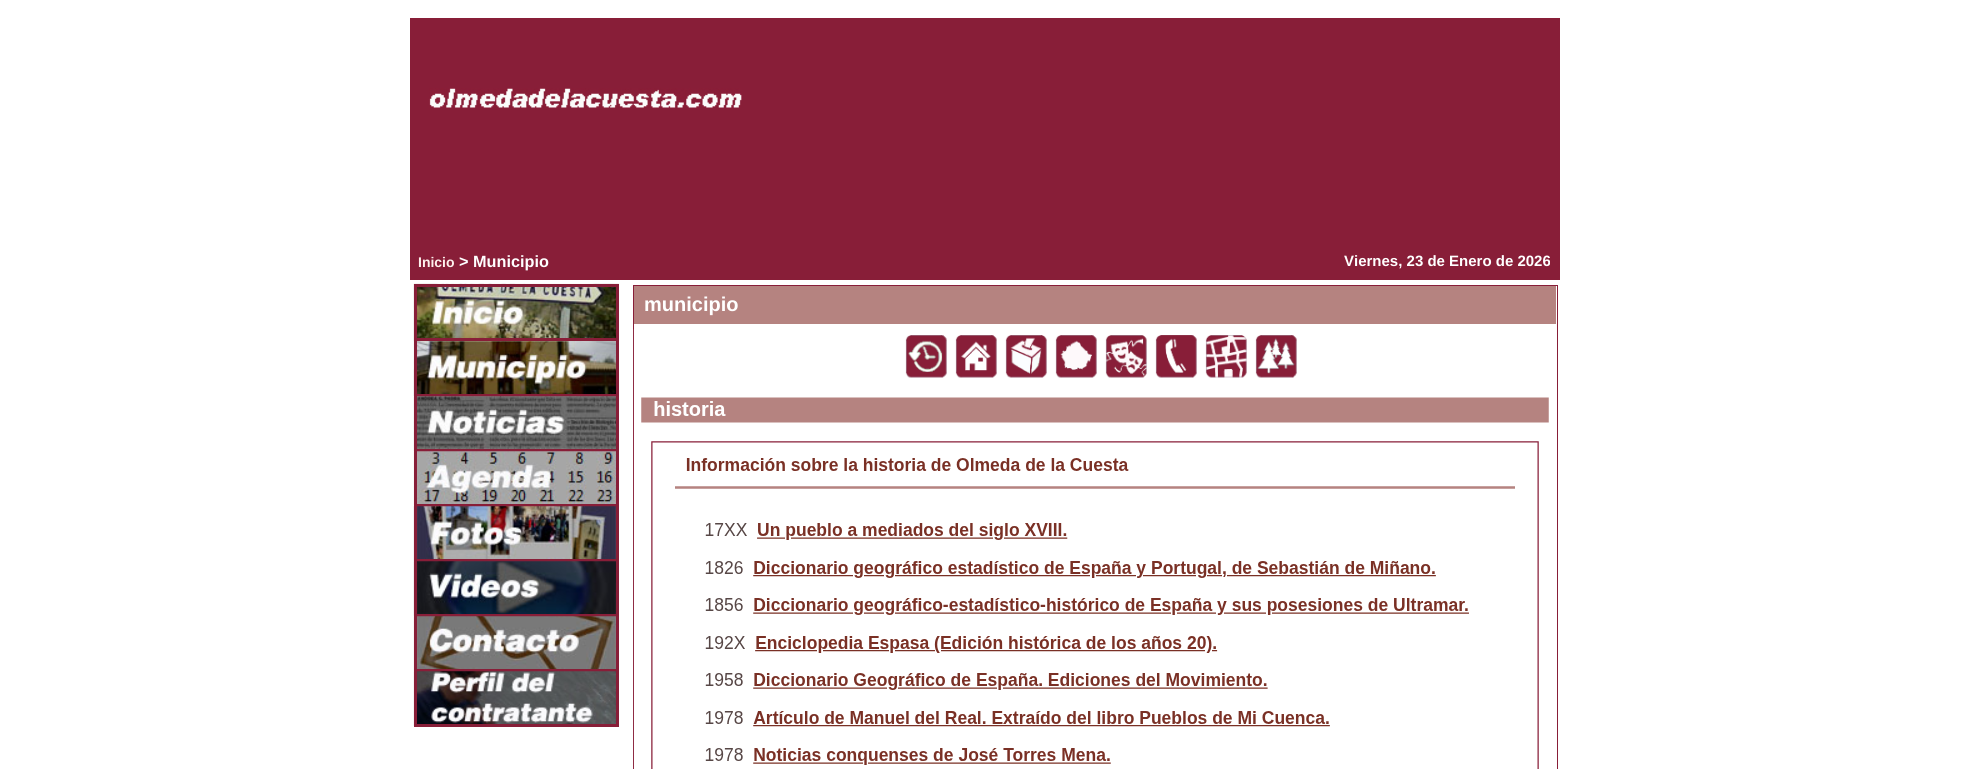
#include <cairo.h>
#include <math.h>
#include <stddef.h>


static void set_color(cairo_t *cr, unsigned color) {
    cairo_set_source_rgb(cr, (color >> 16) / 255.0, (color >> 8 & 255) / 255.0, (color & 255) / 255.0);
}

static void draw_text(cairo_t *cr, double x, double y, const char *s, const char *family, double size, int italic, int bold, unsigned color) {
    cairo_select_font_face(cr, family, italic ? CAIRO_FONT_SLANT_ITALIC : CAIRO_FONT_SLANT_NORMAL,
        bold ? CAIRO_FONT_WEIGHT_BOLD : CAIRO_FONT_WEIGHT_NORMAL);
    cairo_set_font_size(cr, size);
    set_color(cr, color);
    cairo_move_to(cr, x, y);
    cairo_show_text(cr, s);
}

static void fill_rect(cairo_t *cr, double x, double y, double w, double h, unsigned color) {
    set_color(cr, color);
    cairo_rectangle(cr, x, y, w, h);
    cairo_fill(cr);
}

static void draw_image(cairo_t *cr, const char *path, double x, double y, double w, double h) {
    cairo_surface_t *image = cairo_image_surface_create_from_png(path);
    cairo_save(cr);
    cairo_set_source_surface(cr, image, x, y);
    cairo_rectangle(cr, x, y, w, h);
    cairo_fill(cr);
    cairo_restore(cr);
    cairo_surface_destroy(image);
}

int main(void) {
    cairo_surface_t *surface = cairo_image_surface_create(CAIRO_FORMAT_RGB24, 1967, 769);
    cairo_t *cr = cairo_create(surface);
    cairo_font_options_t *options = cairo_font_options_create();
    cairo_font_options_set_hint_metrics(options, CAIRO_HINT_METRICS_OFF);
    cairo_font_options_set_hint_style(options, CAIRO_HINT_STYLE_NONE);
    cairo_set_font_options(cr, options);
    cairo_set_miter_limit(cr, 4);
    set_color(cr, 0xFFFFFF);
    cairo_paint(cr);
    fill_rect(cr, 410, 18, 1150, 262, 0x881E38);
    draw_image(cr, "assets/img1.png", 429, 88, 313, 20);
    draw_text(cr, 418, 267, "Inicio", "Liberation Sans", 14, 0, 1, 0xFEF1ED);
    draw_text(cr, 459, 267, "> Municipio", "Liberation Sans", 16.25, 0, 1, 0xFFFFFF);
    draw_text(cr, 1344, 266, "Viernes, 23 de Enero de 2026", "Liberation Sans", 15, 0, 1, 0xFFFFFF);
    draw_image(cr, "assets/img2.png", 413, 283, 206, 59);
    cairo_rectangle(cr, 415.5, 285.5, 202, 54);
    set_color(cr, 0x881E38);
    cairo_set_line_width(cr, 3);
    cairo_stroke(cr);
    draw_image(cr, "assets/img3.png", 413, 341, 203, 55);
    fill_rect(cr, 616, 341, 3, 55, 0x881E38);
    fill_rect(cr, 414, 394, 205, 3, 0x881E38);
    fill_rect(cr, 414, 341, 3, 55, 0x881E38);
    draw_image(cr, "assets/img4.png", 413, 396, 203, 55);
    fill_rect(cr, 616, 396, 3, 55, 0x881E38);
    fill_rect(cr, 414, 449, 205, 3, 0x881E38);
    fill_rect(cr, 414, 396, 3, 55, 0x881E38);
    draw_image(cr, "assets/img5.png", 413, 451, 203, 55);
    fill_rect(cr, 616, 451, 3, 55, 0x881E38);
    fill_rect(cr, 414, 504, 205, 3, 0x881E38);
    fill_rect(cr, 414, 451, 3, 55, 0x881E38);
    draw_image(cr, "assets/img6.png", 413, 506, 203, 55);
    fill_rect(cr, 616, 506, 3, 55, 0x881E38);
    fill_rect(cr, 414, 559, 205, 3, 0x881E38);
    fill_rect(cr, 414, 506, 3, 55, 0x881E38);
    draw_image(cr, "assets/img7.png", 413, 561, 203, 55);
    fill_rect(cr, 616, 561, 3, 55, 0x881E38);
    fill_rect(cr, 414, 614, 205, 3, 0x881E38);
    fill_rect(cr, 414, 561, 3, 55, 0x881E38);
    draw_image(cr, "assets/img8.png", 413, 616, 203, 55);
    fill_rect(cr, 616, 616, 3, 55, 0x881E38);
    fill_rect(cr, 414, 669, 205, 3, 0x881E38);
    fill_rect(cr, 414, 616, 3, 55, 0x881E38);
    draw_image(cr, "assets/img9.png", 413, 671, 203, 55);
    fill_rect(cr, 616, 671, 3, 55, 0x881E38);
    fill_rect(cr, 414, 724, 205, 3, 0x881E38);
    fill_rect(cr, 414, 671, 3, 55, 0x881E38);
    cairo_rectangle(cr, 633.5, 285.5, 924, 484);
    cairo_set_line_width(cr, 1);
    cairo_stroke(cr);
    fill_rect(cr, 634, 286, 922, 38, 0xB58380);
    draw_text(cr, 644, 311, "municipio", "Liberation Sans", 20, 0, 1, 0xFFFFFF);
    draw_image(cr, "assets/img10.png", 633, 329, 916, 440);
    cairo_surface_write_to_png(surface, "output.png");
    cairo_font_options_destroy(options);
    cairo_destroy(cr);
    cairo_surface_destroy(surface);
    return 0;
}
